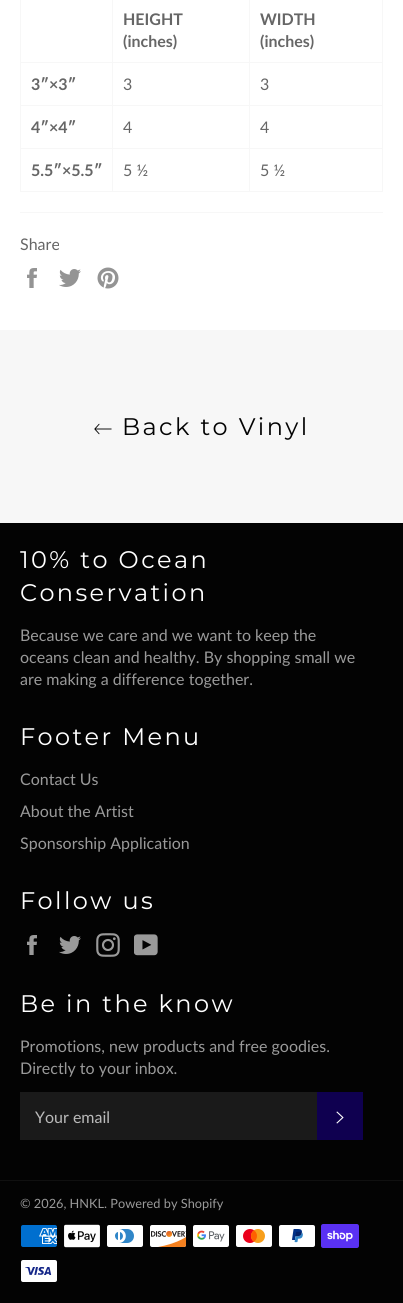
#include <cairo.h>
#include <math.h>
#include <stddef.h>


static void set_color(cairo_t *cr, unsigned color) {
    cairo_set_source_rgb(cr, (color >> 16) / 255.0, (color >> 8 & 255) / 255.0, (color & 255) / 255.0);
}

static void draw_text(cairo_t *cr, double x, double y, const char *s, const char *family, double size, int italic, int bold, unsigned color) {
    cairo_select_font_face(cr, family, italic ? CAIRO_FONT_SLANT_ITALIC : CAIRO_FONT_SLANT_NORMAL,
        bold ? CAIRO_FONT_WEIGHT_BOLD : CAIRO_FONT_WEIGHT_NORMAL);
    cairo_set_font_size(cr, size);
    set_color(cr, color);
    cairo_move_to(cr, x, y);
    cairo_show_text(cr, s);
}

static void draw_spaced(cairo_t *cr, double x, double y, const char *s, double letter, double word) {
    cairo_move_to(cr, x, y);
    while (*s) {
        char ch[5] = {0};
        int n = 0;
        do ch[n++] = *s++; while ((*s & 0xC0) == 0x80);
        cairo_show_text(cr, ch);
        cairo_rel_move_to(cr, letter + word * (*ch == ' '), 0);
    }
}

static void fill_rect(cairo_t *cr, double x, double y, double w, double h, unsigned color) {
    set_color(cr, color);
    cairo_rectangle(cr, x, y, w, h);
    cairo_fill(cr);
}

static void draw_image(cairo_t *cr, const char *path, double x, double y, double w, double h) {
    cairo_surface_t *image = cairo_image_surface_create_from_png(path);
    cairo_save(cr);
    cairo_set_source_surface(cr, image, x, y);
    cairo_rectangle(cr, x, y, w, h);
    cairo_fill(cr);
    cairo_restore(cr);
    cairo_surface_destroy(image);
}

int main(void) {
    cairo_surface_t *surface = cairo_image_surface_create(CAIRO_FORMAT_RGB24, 403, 1303);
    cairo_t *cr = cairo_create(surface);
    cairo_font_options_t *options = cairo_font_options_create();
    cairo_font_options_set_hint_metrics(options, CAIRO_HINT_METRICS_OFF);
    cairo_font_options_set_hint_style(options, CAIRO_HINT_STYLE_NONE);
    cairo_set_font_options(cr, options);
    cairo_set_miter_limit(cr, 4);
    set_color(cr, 0xFFFFFF);
    cairo_paint(cr);
    fill_rect(cr, 249, 62, 134, 1, 0xF7F7F7);
    fill_rect(cr, 249, 105, 134, 1, 0xF7F7F7);
    fill_rect(cr, 249, 148, 134, 1, 0xF7F7F7);
    fill_rect(cr, 382, 148, 1, 44, 0xF7F7F7);
    fill_rect(cr, 249, 191, 134, 1, 0xF7F7F7);
    fill_rect(cr, 249, 148, 1, 44, 0xF7F7F7);
    fill_rect(cr, 112, 148, 138, 1, 0xF7F7F7);
    fill_rect(cr, 249, 105, 1, 44, 0xF7F7F7);
    fill_rect(cr, 112, 105, 138, 1, 0xF7F7F7);
    fill_rect(cr, 249, 62, 1, 44, 0xF7F7F7);
    fill_rect(cr, 112, 62, 138, 1, 0xF7F7F7);
    fill_rect(cr, 112, 191, 138, 1, 0xF7F7F7);
    fill_rect(cr, 112, 148, 1, 44, 0xF7F7F7);
    fill_rect(cr, 20, 148, 93, 1, 0xF7F7F7);
    fill_rect(cr, 112, 105, 1, 44, 0xF7F7F7);
    fill_rect(cr, 20, 105, 93, 1, 0xF7F7F7);
    fill_rect(cr, 112, 62, 1, 44, 0xF7F7F7);
    fill_rect(cr, 20, 62, 93, 1, 0xF7F7F7);
    fill_rect(cr, 112, 0, 1, 63, 0xF7F7F7);
    draw_text(cr, 123, 25, "HEIGHT", "Lato", 16, 0, 1, 0x666666);
    draw_text(cr, 123, 47, "(inches)", "Lato", 16, 0, 1, 0x666666);
    fill_rect(cr, 249, 0, 1, 63, 0xF7F7F7);
    draw_text(cr, 260, 25, "WIDTH", "Lato", 16, 0, 1, 0x666666);
    draw_text(cr, 260, 47, "(inches)", "Lato", 16, 0, 1, 0x666666);
    fill_rect(cr, 20, 191, 93, 1, 0xF7F7F7);
    fill_rect(cr, 20, 148, 1, 44, 0xF7F7F7);
    fill_rect(cr, 20, 105, 1, 44, 0xF7F7F7);
    fill_rect(cr, 20, 0, 1, 106, 0xF7F7F7);
    draw_text(cr, 31, 90, "3″×3″", "Lato", 16, 0, 1, 0x666666);
    draw_text(cr, 123, 90, "3", "Lato", 16, 0, 0, 0x666666);
    fill_rect(cr, 382, 105, 1, 44, 0xF7F7F7);
    fill_rect(cr, 382, 0, 1, 106, 0xF7F7F7);
    draw_text(cr, 260, 90, "3", "Lato", 16, 0, 0, 0x666666);
    draw_text(cr, 31, 133, "4″×4″", "Lato", 16, 0, 1, 0x666666);
    draw_text(cr, 123, 133, "4", "Lato", 16, 0, 0, 0x666666);
    draw_text(cr, 260, 133, "4", "Lato", 16, 0, 0, 0x666666);
    draw_text(cr, 31, 176, "5.5″×5.5″", "Lato", 16, 0, 1, 0x666666);
    draw_text(cr, 123, 176, "5 ½", "Lato", 16, 0, 0, 0x666666);
    draw_text(cr, 260, 176, "5 ½", "Lato", 16, 0, 0, 0x666666);
    fill_rect(cr, 20, 212, 363, 1, 0xF7F7F7);
    draw_text(cr, 20, 250, "Share", "Lato", 16, 0, 0, 0x666666);
    draw_image(cr, "assets/img1.png", 27, 268, 10, 20);
    draw_image(cr, "assets/img2.png", 59, 269, 22, 18);
    draw_image(cr, "assets/img3.png", 97, 267, 22, 22);
    fill_rect(cr, 0, 330, 403, 193, 0xF7F7F7);
    draw_image(cr, "assets/img4.png", 94, 423, 18, 12);
    cairo_select_font_face(cr, "Montserrat", CAIRO_FONT_SLANT_NORMAL, CAIRO_FONT_WEIGHT_NORMAL);
    cairo_set_font_size(cr, 24);
    set_color(cr, 0x030303);
    draw_spaced(cr, 122, 435, "Back to Vinyl", 2.4, 0);
    fill_rect(cr, 0, 523, 403, 780, 0x030303);
    set_color(cr, 0xFFFFFF);
    draw_spaced(cr, 20, 568, "10% to Ocean", 2.4, 0);
    draw_spaced(cr, 20, 601, "Conservation", 2.4, 0);
    draw_text(cr, 20, 641, "Because we care and we want to keep the", "Lato", 16, 0, 0, 0x9A9A9A);
    draw_text(cr, 20, 663, "oceans clean and healthy. By shopping small we", "Lato", 16, 0, 0, 0x9A9A9A);
    draw_text(cr, 20, 685, "are making a difference together.", "Lato", 16, 0, 0, 0x9A9A9A);
    cairo_select_font_face(cr, "Montserrat", CAIRO_FONT_SLANT_NORMAL, CAIRO_FONT_WEIGHT_NORMAL);
    cairo_set_font_size(cr, 24);
    set_color(cr, 0xFFFFFF);
    draw_spaced(cr, 20, 745, "Footer Menu", 2.4, 0);
    draw_text(cr, 20, 785, "Contact Us", "Lato", 16, 0, 0, 0x9A9A9A);
    draw_text(cr, 20, 817, "About the Artist", "Lato", 16, 0, 0, 0x9A9A9A);
    draw_text(cr, 20, 849, "Sponsorship Application", "Lato", 16, 0, 0, 0x9A9A9A);
    cairo_select_font_face(cr, "Montserrat", CAIRO_FONT_SLANT_NORMAL, CAIRO_FONT_WEIGHT_NORMAL);
    cairo_set_font_size(cr, 24);
    set_color(cr, 0xFFFFFF);
    draw_spaced(cr, 20, 909, "Follow us", 2.4, 0);
    draw_image(cr, "assets/img5.png", 27, 935, 10, 20);
    draw_image(cr, "assets/img6.png", 59, 936, 22, 18);
    draw_image(cr, "assets/img7.png", 96, 933, 24, 24);
    draw_image(cr, "assets/img8.png", 134, 934, 24, 22);
    draw_spaced(cr, 20, 1012, "Be in the know", 2.4, 0);
    draw_text(cr, 20, 1052, "Promotions, new products and free goodies.", "Lato", 16, 0, 0, 0x9A9A9A);
    draw_text(cr, 20, 1074, "Directly to your inbox.", "Lato", 16, 0, 0, 0x9A9A9A);
    fill_rect(cr, 20, 1092, 297, 48, 0x1A1A1A);
    draw_text(cr, 35, 1123, "Your email", "Lato", 16, 0, 0, 0xBABABA);
    fill_rect(cr, 317, 1092, 46, 48, 0x0F0050);
    draw_image(cr, "assets/img9.png", 336, 1111, 8, 13);
    fill_rect(cr, 0, 1180, 403, 1, 0x101010);
    draw_text(cr, 20, 1208, "© 2026, HNKL. Powered by Shopify", "Lato", 12.75, 0, 0, 0x9A9A9A);
    draw_image(cr, "assets/img10.png", 21, 1225, 36, 22);
    draw_image(cr, "assets/img11.png", 64, 1224, 36, 24);
    draw_image(cr, "assets/img12.png", 107, 1225, 36, 22);
    draw_image(cr, "assets/img13.png", 150, 1225, 37, 22);
    draw_image(cr, "assets/img14.png", 193, 1225, 36, 22);
    draw_image(cr, "assets/img15.png", 236, 1225, 36, 22);
    draw_image(cr, "assets/img16.png", 279, 1225, 36, 22);
    draw_image(cr, "assets/img17.png", 321, 1224, 38, 24);
    draw_image(cr, "assets/img18.png", 21, 1260, 36, 22);
    cairo_surface_write_to_png(surface, "output.png");
    cairo_font_options_destroy(options);
    cairo_destroy(cr);
    cairo_surface_destroy(surface);
    return 0;
}
